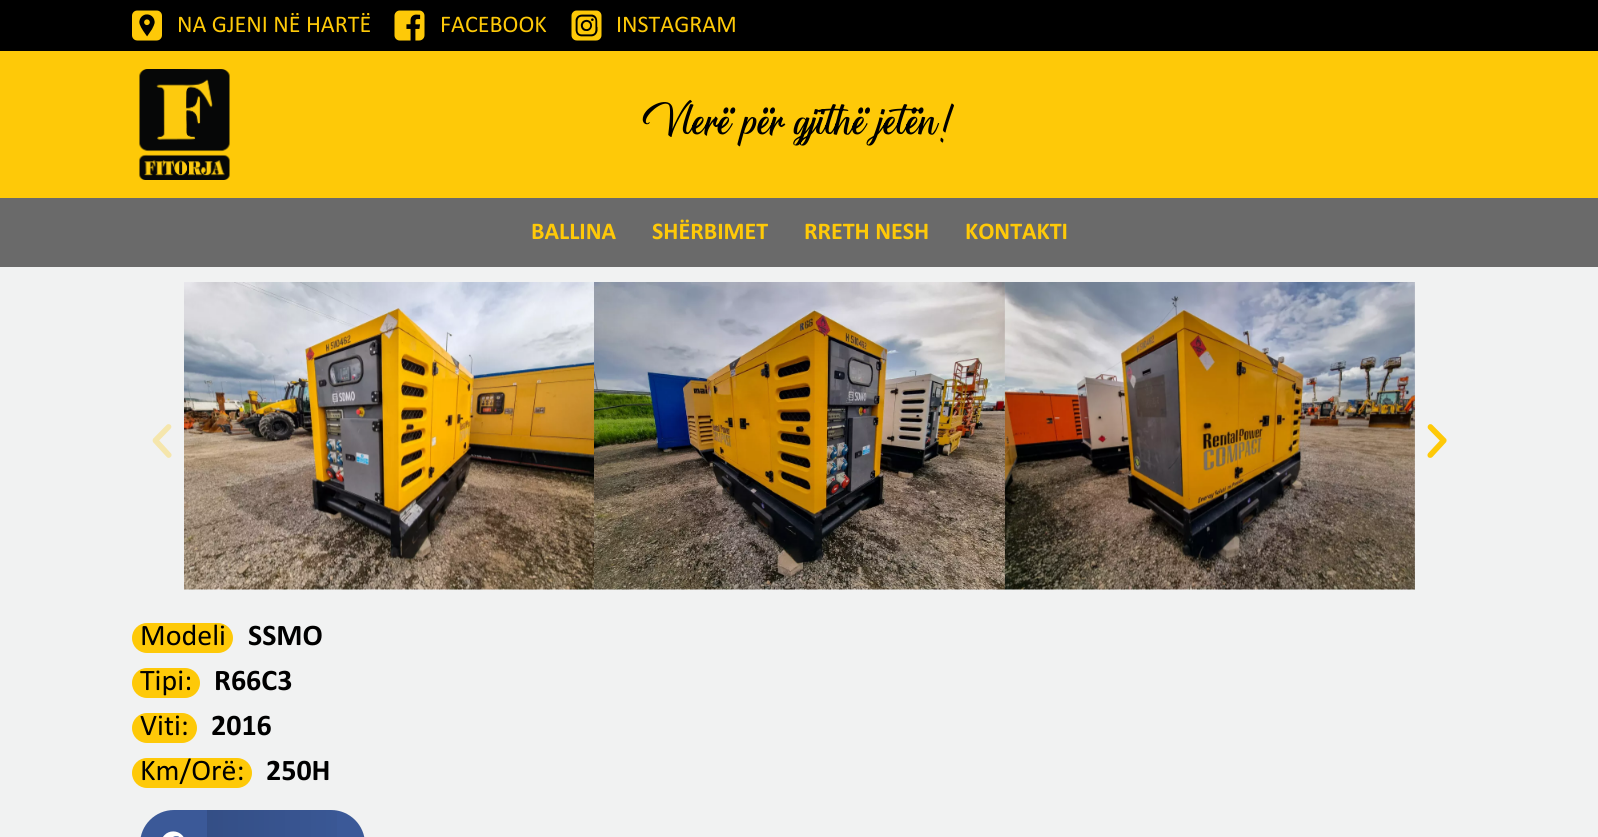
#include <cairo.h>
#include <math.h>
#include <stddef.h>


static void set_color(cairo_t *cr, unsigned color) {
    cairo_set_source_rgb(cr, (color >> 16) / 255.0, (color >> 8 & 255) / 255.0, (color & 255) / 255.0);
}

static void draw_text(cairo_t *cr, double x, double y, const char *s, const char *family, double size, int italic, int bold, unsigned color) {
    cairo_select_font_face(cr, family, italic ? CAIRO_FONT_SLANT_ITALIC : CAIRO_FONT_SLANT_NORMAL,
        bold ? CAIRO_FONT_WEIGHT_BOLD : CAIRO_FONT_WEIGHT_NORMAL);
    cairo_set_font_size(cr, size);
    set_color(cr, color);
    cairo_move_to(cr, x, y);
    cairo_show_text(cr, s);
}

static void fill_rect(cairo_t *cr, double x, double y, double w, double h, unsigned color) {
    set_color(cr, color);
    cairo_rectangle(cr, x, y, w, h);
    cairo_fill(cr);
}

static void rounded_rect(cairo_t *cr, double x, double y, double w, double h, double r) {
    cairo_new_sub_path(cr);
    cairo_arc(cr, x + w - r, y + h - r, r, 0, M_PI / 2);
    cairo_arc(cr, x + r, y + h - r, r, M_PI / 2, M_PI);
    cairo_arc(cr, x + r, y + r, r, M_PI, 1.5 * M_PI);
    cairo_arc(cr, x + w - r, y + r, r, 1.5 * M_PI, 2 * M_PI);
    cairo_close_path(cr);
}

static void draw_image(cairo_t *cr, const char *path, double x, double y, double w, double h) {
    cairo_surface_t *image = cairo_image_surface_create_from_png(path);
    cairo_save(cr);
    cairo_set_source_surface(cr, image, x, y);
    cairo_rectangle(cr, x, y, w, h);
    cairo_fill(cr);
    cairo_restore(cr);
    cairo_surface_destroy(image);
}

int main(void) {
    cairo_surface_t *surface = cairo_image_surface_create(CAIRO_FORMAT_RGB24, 1598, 837);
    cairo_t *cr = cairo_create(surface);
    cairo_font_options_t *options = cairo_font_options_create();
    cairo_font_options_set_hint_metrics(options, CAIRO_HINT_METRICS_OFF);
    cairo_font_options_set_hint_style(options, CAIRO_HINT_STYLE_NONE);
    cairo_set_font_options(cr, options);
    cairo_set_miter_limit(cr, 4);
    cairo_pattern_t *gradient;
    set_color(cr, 0xF1F2F2);
    cairo_paint(cr);
    fill_rect(cr, 0, 0, 1598, 51, 0x000000);
    draw_image(cr, "assets/img1.png", 132, 10, 30, 31);
    draw_text(cr, 177, 32, "NA GJENI NË HARTË", "Calibri", 24, 0, 0, 0xFEC908);
    draw_image(cr, "assets/img2.png", 394, 10, 31, 31);
    draw_text(cr, 440, 32, "FACEBOOK", "Calibri", 24, 0, 0, 0xFEC908);
    draw_image(cr, "assets/img3.png", 571, 10, 31, 31);
    draw_text(cr, 616, 32, "INSTAGRAM", "Calibri", 24, 0, 0, 0xFEC908);
    fill_rect(cr, 0, 51, 1598, 147, 0xFEC908);
    draw_image(cr, "assets/img4.png", 139, 69, 91, 111);
    draw_text(cr, 640, 134, "Vlerë për gjithë jetën!", "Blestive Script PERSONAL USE", 52.5, 0, 0, 0x000000);
    fill_rect(cr, 0, 198, 1598, 69, 0x6A6A6A);
    draw_text(cr, 531, 239, "BALLINA", "Calibri", 24, 0, 1, 0xFEC908);
    draw_text(cr, 652, 239, "SHËRBIMET", "Calibri", 24, 0, 1, 0xFEC908);
    draw_text(cr, 804, 239, "RRETH NESH", "Calibri", 24, 0, 1, 0xFEC908);
    draw_text(cr, 965, 239, "KONTAKTI", "Calibri", 24, 0, 1, 0xFEC908);
    draw_image(cr, "assets/img5.png", 152, 424, 20, 34);
    draw_image(cr, "assets/img6.png", 184, 282, 410, 308);
    draw_image(cr, "assets/img7.png", 594, 282, 411, 308);
    draw_image(cr, "assets/img8.png", 1004, 282, 411, 308);
    draw_image(cr, "assets/img9.png", 1414, 304, 1, 286);
    draw_image(cr, "assets/img10.png", 1427, 424, 20, 34);
    rounded_rect(cr, 132, 623, 101, 30, 15);
    cairo_fill(cr);
    draw_text(cr, 140, 645, "Modeli", "Calibri", 30, 0, 0, 0x000000);
    draw_text(cr, 248, 645, "SSMO", "Calibri", 30, 0, 1, 0x000000);
    set_color(cr, 0xFEC908);
    rounded_rect(cr, 132, 668, 68, 30, 15);
    cairo_fill(cr);
    draw_text(cr, 140, 690, "Tipi:", "Calibri", 30, 0, 0, 0x000000);
    draw_text(cr, 214, 690, "R66C3", "Calibri", 30, 0, 1, 0x000000);
    set_color(cr, 0xFEC908);
    rounded_rect(cr, 132, 713, 65, 30, 15);
    cairo_fill(cr);
    draw_text(cr, 140, 735, "Viti:", "Calibri", 30, 0, 0, 0x000000);
    draw_text(cr, 211, 735, "2016", "Calibri", 30, 0, 1, 0x000000);
    set_color(cr, 0xFEC908);
    rounded_rect(cr, 132, 758, 120, 30, 15);
    cairo_fill(cr);
    draw_text(cr, 140, 780, "Km/Orë:", "Calibri", 30, 0, 0, 0x000000);
    draw_text(cr, 266, 780, "250H", "Calibri", 30, 0, 1, 0x000000);
    set_color(cr, 0x3B5998);
    rounded_rect(cr, 140, 810, 225, 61, 34);
    cairo_fill(cr);
    draw_image(cr, "assets/img11.png", 163, 831, 21, 6);
    gradient = cairo_pattern_create_linear(207, 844, 365, 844);
    cairo_pattern_add_color_stop_rgba(gradient, 0, 0, 0, 0, 0.12);
    cairo_pattern_add_color_stop_rgba(gradient, 1, 0, 0, 0, 0);
    cairo_set_source(cr, gradient);
    cairo_pattern_destroy(gradient);
    cairo_rectangle(cr, 207, 810, 130, 27);
    cairo_fill(cr);
    cairo_surface_write_to_png(surface, "output.png");
    cairo_font_options_destroy(options);
    cairo_destroy(cr);
    cairo_surface_destroy(surface);
    return 0;
}
